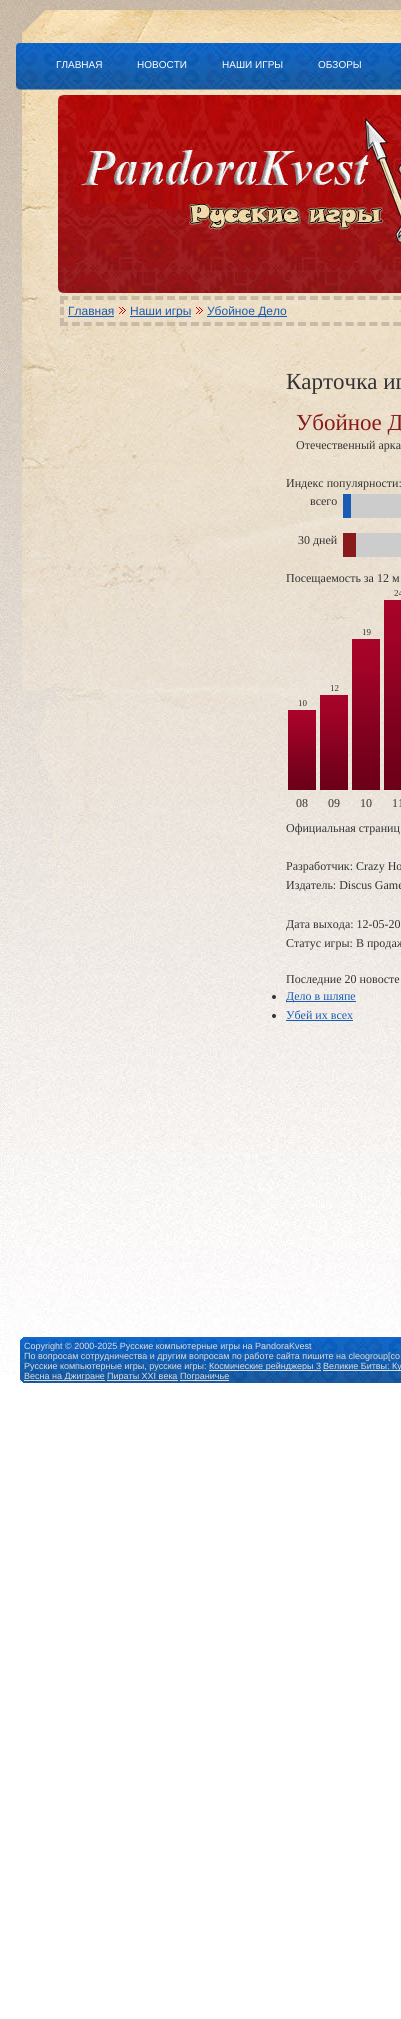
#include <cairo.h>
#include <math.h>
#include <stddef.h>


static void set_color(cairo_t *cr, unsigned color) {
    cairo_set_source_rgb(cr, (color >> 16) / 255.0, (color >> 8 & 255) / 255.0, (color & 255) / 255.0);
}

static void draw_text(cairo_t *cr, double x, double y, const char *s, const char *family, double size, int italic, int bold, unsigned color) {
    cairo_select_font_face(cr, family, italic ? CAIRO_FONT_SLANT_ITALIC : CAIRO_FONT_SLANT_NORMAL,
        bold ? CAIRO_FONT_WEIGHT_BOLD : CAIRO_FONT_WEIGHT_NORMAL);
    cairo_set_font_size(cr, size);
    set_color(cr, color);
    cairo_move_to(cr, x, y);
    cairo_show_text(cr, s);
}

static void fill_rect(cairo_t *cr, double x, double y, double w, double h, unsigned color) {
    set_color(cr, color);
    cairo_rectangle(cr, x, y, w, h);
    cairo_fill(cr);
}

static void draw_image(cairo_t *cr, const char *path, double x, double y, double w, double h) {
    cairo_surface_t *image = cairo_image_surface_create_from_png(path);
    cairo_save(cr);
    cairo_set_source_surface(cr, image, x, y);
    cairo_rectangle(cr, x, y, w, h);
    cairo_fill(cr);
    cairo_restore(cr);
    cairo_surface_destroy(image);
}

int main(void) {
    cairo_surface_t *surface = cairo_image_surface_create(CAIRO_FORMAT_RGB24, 401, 2019);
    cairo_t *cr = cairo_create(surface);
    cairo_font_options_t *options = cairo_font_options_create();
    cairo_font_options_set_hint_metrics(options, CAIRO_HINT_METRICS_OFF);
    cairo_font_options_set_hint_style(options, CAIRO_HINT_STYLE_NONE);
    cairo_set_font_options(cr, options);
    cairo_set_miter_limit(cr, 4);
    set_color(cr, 0xFFFFFF);
    cairo_paint(cr);
    draw_image(cr, "assets/img1.png", 0, 0, 20, 1375);
    draw_image(cr, "assets/img2.png", 10, 0, 391, 1374);
    draw_text(cr, 56, 68, "ГЛАВНАЯ", "Liberation Sans", 10, 0, 0, 0xFFFFFF);
    draw_text(cr, 137, 68, "НОВОСТИ", "Liberation Sans", 10, 0, 0, 0xFFFFFF);
    draw_text(cr, 222, 68, "НАШИ ИГРЫ", "Liberation Sans", 10, 0, 0, 0xFFFFFF);
    draw_text(cr, 318, 68, "ОБЗОРЫ", "Liberation Sans", 10, 0, 0, 0xFFFFFF);
    cairo_new_path(cr);
    cairo_move_to(cr, 60, 298);
    cairo_line_to(cr, 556, 298);
    set_color(cr, 0xC9BAA7);
    cairo_set_line_width(cr, 4);
    cairo_set_dash(cr, (double[]){8, 3.9}, 2, 0);
    cairo_stroke(cr);
    cairo_new_path(cr);
    cairo_move_to(cr, 60, 324);
    cairo_line_to(cr, 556, 324);
    cairo_stroke(cr);
    cairo_new_path(cr);
    cairo_move_to(cr, 62, 296);
    cairo_line_to(cr, 62, 304);
    cairo_move_to(cr, 62, 307);
    cairo_line_to(cr, 62, 315);
    cairo_move_to(cr, 62, 318);
    cairo_line_to(cr, 62, 326);
    cairo_set_dash(cr, NULL, 0, 0);
    cairo_stroke(cr);
    draw_text(cr, 68, 315, "Главная", "Liberation Sans", 12, 0, 0, 0x195CB3);
    fill_rect(cr, 68, 316, 46, 1, 0x195CB3);
    draw_image(cr, "assets/img3.png", 119, 307, 7, 7);
    fill_rect(cr, 130, 316, 61, 1, 0x195CB3);
    draw_text(cr, 130, 315, "Наши игры", "Liberation Sans", 12, 0, 0, 0x195CB3);
    draw_image(cr, "assets/img4.png", 196, 307, 7, 7);
    fill_rect(cr, 207, 316, 80, 1, 0x195CB3);
    draw_text(cr, 207, 315, "Убойное Дело", "Liberation Sans", 12, 0, 0, 0x195CB3);
    draw_text(cr, 286, 389, "Карточка иг", "Liberation Serif", 23, 0, 0, 0x333333);
    draw_text(cr, 296, 430, "Убойное Д", "Liberation Serif", 23, 0, 0, 0x881A1B);
    draw_text(cr, 296, 449, "Отечественный арка", "Liberation Serif", 12, 0, 0, 0x333333);
    draw_text(cr, 286, 487, "Индекс популярности:", "Liberation Serif", 12, 0, 0, 0x333333);
    draw_text(cr, 310, 505, "всего", "Liberation Serif", 12, 0, 0, 0x333333);
    fill_rect(cr, 351, 494, 50, 24, 0xCCCCCC);
    fill_rect(cr, 343, 494, 8, 24, 0x195CB3);
    draw_text(cr, 298, 544, "30 дней", "Liberation Serif", 12, 0, 0, 0x333333);
    fill_rect(cr, 356, 533, 45, 24, 0xCCCCCC);
    fill_rect(cr, 343, 533, 13, 24, 0x881A1B);
    draw_text(cr, 286, 582, "Посещаемость за 12 м", "Liberation Serif", 12, 0, 0, 0x333333);
    draw_text(cr, 298, 706, "10", "Liberation Serif", 9, 0, 0, 0x333333);
    draw_image(cr, "assets/img5.png", 288, 710, 28, 80);
    draw_text(cr, 296, 807, "08", "Liberation Serif", 12, 0, 0, 0x333333);
    draw_text(cr, 330, 691, "12", "Liberation Serif", 9, 0, 0, 0x333333);
    draw_image(cr, "assets/img6.png", 320, 695, 28, 95);
    draw_text(cr, 328, 807, "09", "Liberation Serif", 12, 0, 0, 0x333333);
    draw_text(cr, 362, 635, "19", "Liberation Serif", 9, 0, 0, 0x333333);
    draw_image(cr, "assets/img7.png", 352, 639, 28, 151);
    draw_text(cr, 360, 807, "10", "Liberation Serif", 12, 0, 0, 0x333333);
    draw_text(cr, 394, 596, "24", "Liberation Serif", 9, 0, 0, 0x333333);
    draw_image(cr, "assets/img8.png", 384, 600, 17, 190);
    draw_text(cr, 392, 807, "11", "Liberation Serif", 12, 0, 0, 0x333333);
    draw_text(cr, 286, 832, "Официальная страниц", "Liberation Serif", 12, 0, 0, 0x333333);
    draw_text(cr, 286, 870, "Разработчик: Crazy Ho", "Liberation Serif", 12, 0, 0, 0x333333);
    draw_text(cr, 286, 889, "Издатель: Discus Game", "Liberation Serif", 12, 0, 0, 0x333333);
    draw_text(cr, 286, 928, "Дата выхода: 12-05-20", "Liberation Serif", 12, 0, 0, 0x333333);
    draw_text(cr, 286, 947, "Статус игры: В продаж", "Liberation Serif", 12, 0, 0, 0x333333);
    draw_text(cr, 286, 983, "Последние 20 новосте", "Liberation Serif", 12, 0, 0, 0x333333);
    cairo_new_path(cr);
    cairo_arc(cr, 274, 997, 2, 0, 2 * M_PI);
    cairo_fill(cr);
    fill_rect(cr, 286, 1001, 70, 1, 0x195CB3);
    draw_text(cr, 286, 1000, "Дело в шляпе", "Liberation Serif", 12, 0, 0, 0x195CB3);
    set_color(cr, 0x333333);
    cairo_new_path(cr);
    cairo_arc(cr, 274, 1016, 2, 0, 2 * M_PI);
    cairo_fill(cr);
    draw_text(cr, 286, 1019, "Убей их всех", "Liberation Serif", 12, 0, 0, 0x195CB3);
    fill_rect(cr, 286, 1020, 67, 1, 0x195CB3);
    draw_image(cr, "assets/img9.png", 20, 1337, 381, 46);
    draw_text(cr, 24, 1349, "Copyright © 2000-2025 Русские компьютерные игры на PandoraKvest", "Liberation Sans", 9, 0, 0, 0xDDDDDD);
    draw_text(cr, 24, 1359, "По вопросам сотрудничества и другим вопросам по работе сайта пишите на cleogroup[со", "Liberation Sans", 9, 0, 0, 0xDDDDDD);
    draw_text(cr, 24, 1369, "Русские компьютерные игры, русские игры:", "Liberation Sans", 9, 0, 0, 0xDDDDDD);
    fill_rect(cr, 209, 1370, 112, 1, 0xDDDDDD);
    draw_text(cr, 209, 1369, "Космические рейнджеры 3", "Liberation Sans", 9, 0, 0, 0xDDDDDD);
    fill_rect(cr, 323, 1370, 78, 1, 0xDDDDDD);
    draw_text(cr, 323, 1369, "Великие Битвы: Ку", "Liberation Sans", 9, 0, 0, 0xDDDDDD);
    fill_rect(cr, 24, 1380, 81, 1, 0xDDDDDD);
    draw_text(cr, 24, 1379, "Весна на Джигране", "Liberation Sans", 9, 0, 0, 0xDDDDDD);
    fill_rect(cr, 107, 1380, 71, 1, 0xDDDDDD);
    draw_text(cr, 107, 1379, "Пираты XXI века", "Liberation Sans", 9, 0, 0, 0xDDDDDD);
    fill_rect(cr, 180, 1380, 49, 1, 0xDDDDDD);
    draw_text(cr, 180, 1379, "Пограничье", "Liberation Sans", 9, 0, 0, 0xDDDDDD);
    cairo_surface_write_to_png(surface, "output.png");
    cairo_font_options_destroy(options);
    cairo_destroy(cr);
    cairo_surface_destroy(surface);
    return 0;
}
